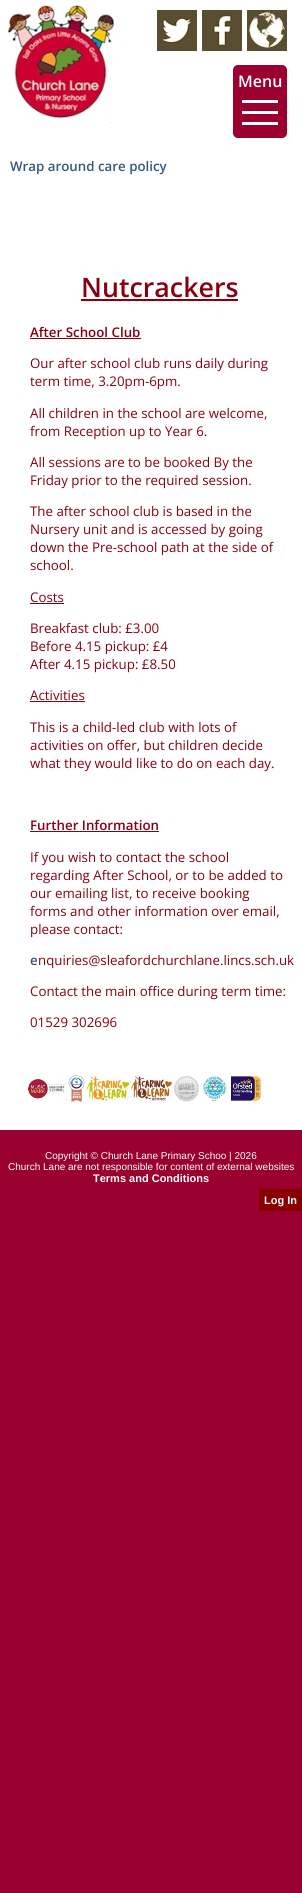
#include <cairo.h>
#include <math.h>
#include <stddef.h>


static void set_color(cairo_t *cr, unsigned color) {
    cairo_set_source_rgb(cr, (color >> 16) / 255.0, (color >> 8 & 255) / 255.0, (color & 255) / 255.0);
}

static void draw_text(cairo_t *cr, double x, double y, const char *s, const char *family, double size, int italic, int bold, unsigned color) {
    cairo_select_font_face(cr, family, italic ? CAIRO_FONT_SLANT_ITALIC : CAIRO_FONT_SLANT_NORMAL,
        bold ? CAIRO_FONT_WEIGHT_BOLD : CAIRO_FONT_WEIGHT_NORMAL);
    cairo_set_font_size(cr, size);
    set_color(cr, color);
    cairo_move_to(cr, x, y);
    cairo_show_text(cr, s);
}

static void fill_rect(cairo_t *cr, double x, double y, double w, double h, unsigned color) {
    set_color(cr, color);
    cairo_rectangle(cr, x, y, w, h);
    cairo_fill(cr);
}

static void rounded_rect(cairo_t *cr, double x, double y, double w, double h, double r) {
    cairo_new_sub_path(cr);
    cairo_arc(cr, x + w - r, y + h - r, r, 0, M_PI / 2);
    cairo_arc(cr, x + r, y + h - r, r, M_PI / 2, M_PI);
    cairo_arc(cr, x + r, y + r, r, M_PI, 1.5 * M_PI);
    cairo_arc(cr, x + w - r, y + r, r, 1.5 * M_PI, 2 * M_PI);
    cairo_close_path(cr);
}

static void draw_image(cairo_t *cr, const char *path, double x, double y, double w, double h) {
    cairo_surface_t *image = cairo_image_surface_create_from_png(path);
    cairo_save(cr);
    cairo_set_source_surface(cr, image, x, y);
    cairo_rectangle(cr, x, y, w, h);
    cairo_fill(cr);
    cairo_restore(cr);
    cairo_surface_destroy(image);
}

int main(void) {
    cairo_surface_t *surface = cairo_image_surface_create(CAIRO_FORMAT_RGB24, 302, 1893);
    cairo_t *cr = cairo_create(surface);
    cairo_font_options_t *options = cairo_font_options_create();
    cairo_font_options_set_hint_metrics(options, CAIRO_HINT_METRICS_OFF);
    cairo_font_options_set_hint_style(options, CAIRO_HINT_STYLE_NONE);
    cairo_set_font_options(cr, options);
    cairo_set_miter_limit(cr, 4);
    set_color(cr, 0x990030);
    cairo_paint(cr);
    fill_rect(cr, 0, 0, 302, 1130, 0xFFFFFF);
    draw_image(cr, "assets/img1.png", 7, 5, 107, 118);
    draw_image(cr, "assets/img2.png", 157, 10, 40, 41);
    draw_image(cr, "assets/img3.png", 202, 10, 40, 41);
    draw_image(cr, "assets/img4.png", 247, 10, 40, 41);
    set_color(cr, 0x9C0030);
    rounded_rect(cr, 233, 65, 54, 73, 5);
    cairo_fill(cr);
    draw_text(cr, 238, 87, "Menu", "Open Sans SemiBold", 16, 0, 0, 0xFFFFFF);
    fill_rect(cr, 242, 100, 36, 3, 0xFFFFFF);
    fill_rect(cr, 242, 111, 36, 3, 0xFFFFFF);
    fill_rect(cr, 242, 122, 36, 3, 0xFFFFFF);
    draw_text(cr, 10, 171, "Wrap around care policy", "Open Sans SemiBold", 13.3, 0, 0, 0x335781);
    draw_text(cr, 81, 297, "Nutcrackers", "Open Sans SemiBold", 26.75, 0, 0, 0x870010);
    fill_rect(cr, 81, 299, 157, 2, 0x870010);
    draw_text(cr, 30, 337, "After School Club", "Open Sans SemiBold", 13.3, 0, 0, 0x870010);
    fill_rect(cr, 30, 338, 111, 1, 0x870010);
    draw_text(cr, 30, 368, "Our after school club runs daily during", "Open Sans", 13.3, 0, 0, 0x870010);
    draw_text(cr, 30, 386, "term time, 3.20pm-6pm.", "Open Sans", 13.3, 0, 0, 0x870010);
    draw_text(cr, 30, 418, "All children in the school are welcome,", "Open Sans", 13.3, 0, 0, 0x870010);
    draw_text(cr, 30, 436, "from Reception up to Year 6.", "Open Sans", 13.3, 0, 0, 0x870010);
    draw_text(cr, 30, 467, "All sessions are to be booked By the", "Open Sans", 13.3, 0, 0, 0x870010);
    draw_text(cr, 30, 485, "Friday prior to the required session.", "Open Sans", 13.3, 0, 0, 0x870010);
    draw_text(cr, 30, 516, "The after school club is based in the", "Open Sans", 13.3, 0, 0, 0x870010);
    draw_text(cr, 30, 534, "Nursery unit and is accessed by going", "Open Sans", 13.3, 0, 0, 0x870010);
    draw_text(cr, 30, 552, "down the Pre-school path at the side of", "Open Sans", 13.3, 0, 0, 0x870010);
    draw_text(cr, 30, 570, "school.", "Open Sans", 13.3, 0, 0, 0x870010);
    draw_text(cr, 30, 602, "Costs", "Open Sans", 13.3, 0, 0, 0x870010);
    fill_rect(cr, 30, 603, 34, 1, 0x870010);
    draw_text(cr, 30, 633, "Breakfast club: £3.00", "Open Sans", 13.3, 0, 0, 0x870010);
    draw_text(cr, 30, 651, "Before 4.15 pickup: £4", "Open Sans", 13.3, 0, 0, 0x870010);
    draw_text(cr, 30, 669, "After 4.15 pickup: £8.50", "Open Sans", 13.3, 0, 0, 0x870010);
    draw_text(cr, 30, 700, "Activities", "Open Sans", 13.3, 0, 0, 0x870010);
    fill_rect(cr, 30, 701, 55, 1, 0x870010);
    draw_text(cr, 30, 732, "This is a child-led club with lots of", "Open Sans", 13.3, 0, 0, 0x870010);
    draw_text(cr, 30, 750, "activities on offer, but children decide", "Open Sans", 13.3, 0, 0, 0x870010);
    draw_text(cr, 30, 768, "what they would like to do on each day.", "Open Sans", 13.3, 0, 0, 0x870010);
    draw_text(cr, 30, 830, "Further Information", "Open Sans SemiBold", 13.3, 0, 0, 0x870010);
    fill_rect(cr, 30, 831, 129, 1, 0x870010);
    draw_text(cr, 30, 862, "If you wish to contact the school", "Open Sans", 13.3, 0, 0, 0x870010);
    draw_text(cr, 30, 880, "regarding After School, or to be added to", "Open Sans", 13.3, 0, 0, 0x870010);
    draw_text(cr, 30, 898, "our emailing list, to receive booking", "Open Sans", 13.3, 0, 0, 0x870010);
    draw_text(cr, 30, 916, "forms and other information over email,", "Open Sans", 13.3, 0, 0, 0x870010);
    draw_text(cr, 30, 934, "please contact:", "Open Sans", 13.3, 0, 0, 0x870010);
    draw_text(cr, 30, 965, "e", "Open Sans SemiBold", 13.3, 0, 0, 0x335781);
    draw_text(cr, 38, 965, "nquiries@sleafordchurchlane.lincs.sch.uk", "Open Sans", 13.3, 0, 0, 0x870010);
    draw_text(cr, 30, 996, "Contact the main office during term time:", "Open Sans", 13.3, 0, 0, 0x870010);
    draw_text(cr, 30, 1027, "01529 302696", "Open Sans", 13.3, 0, 0, 0x870010);
    draw_image(cr, "assets/img5.png", 28, 1075, 234, 27);
    draw_text(cr, 45, 1159, "Copyright © Church Lane Primary Schoo | 2026", "Liberation Sans", 10, 0, 0, 0xFFFFFF);
    draw_text(cr, 8, 1170, "Church Lane are not responsible for content of external websites", "Liberation Sans", 10, 0, 0, 0xFFFFFF);
    draw_text(cr, 93, 1182, "Terms and Conditions", "Liberation Sans", 11, 0, 1, 0xFFFFFF);
    fill_rect(cr, 259, 1189, 43, 22, 0x880000);
    draw_text(cr, 264, 1204, "Log In", "Liberation Sans", 11, 0, 1, 0xFFFFFF);
    cairo_surface_write_to_png(surface, "output.png");
    cairo_font_options_destroy(options);
    cairo_destroy(cr);
    cairo_surface_destroy(surface);
    return 0;
}
